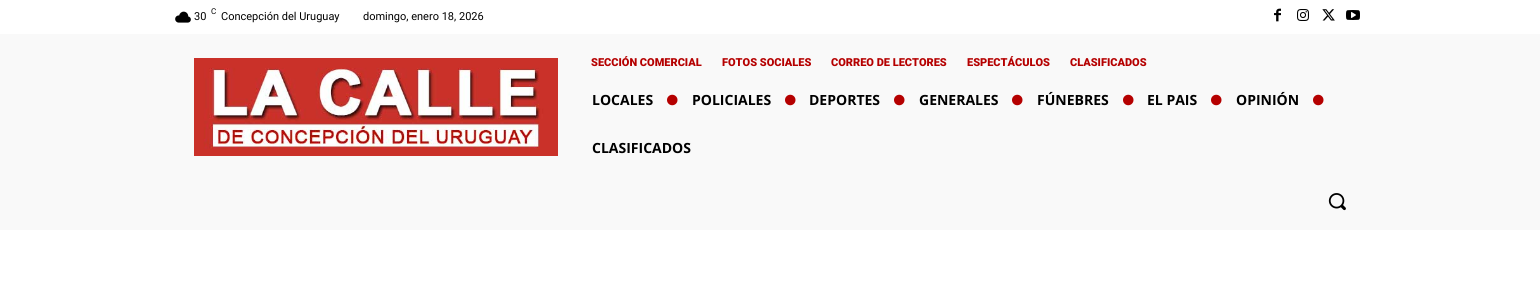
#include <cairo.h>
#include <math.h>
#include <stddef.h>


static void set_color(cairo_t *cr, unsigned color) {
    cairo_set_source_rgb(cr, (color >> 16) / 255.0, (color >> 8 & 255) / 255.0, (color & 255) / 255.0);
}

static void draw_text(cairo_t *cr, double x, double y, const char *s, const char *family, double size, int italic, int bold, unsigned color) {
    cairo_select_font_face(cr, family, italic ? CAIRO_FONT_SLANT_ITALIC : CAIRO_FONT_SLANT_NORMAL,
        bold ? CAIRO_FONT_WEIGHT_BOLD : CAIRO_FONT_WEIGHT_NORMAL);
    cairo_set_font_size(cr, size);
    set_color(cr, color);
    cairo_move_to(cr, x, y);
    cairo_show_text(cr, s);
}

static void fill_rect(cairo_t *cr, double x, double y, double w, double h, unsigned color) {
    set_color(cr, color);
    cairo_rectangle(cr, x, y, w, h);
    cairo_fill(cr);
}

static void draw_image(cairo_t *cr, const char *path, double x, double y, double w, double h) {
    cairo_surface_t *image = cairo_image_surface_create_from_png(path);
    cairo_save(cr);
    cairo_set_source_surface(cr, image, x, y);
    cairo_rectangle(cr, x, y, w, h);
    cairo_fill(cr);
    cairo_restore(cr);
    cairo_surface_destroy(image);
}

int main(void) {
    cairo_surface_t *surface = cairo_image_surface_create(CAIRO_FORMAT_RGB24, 1540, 303);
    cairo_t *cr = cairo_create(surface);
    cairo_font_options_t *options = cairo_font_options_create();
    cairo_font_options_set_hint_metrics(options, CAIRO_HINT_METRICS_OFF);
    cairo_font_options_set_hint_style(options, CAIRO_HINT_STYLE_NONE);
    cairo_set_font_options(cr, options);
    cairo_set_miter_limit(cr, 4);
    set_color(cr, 0xFFFFFF);
    cairo_paint(cr);
    draw_image(cr, "assets/img1.png", 175, 11, 16, 12);
    draw_text(cr, 194, 20, "30", "Roboto", 11, 0, 0, 0x000000);
    draw_text(cr, 211, 14, "C", "Roboto", 8, 0, 0, 0x000000);
    draw_text(cr, 221, 20, "Concepción del Uruguay", "Roboto", 11, 0, 0, 0x000000);
    draw_text(cr, 363, 20, "domingo, enero 18, 2026", "Roboto", 11, 0, 0, 0x000000);
    draw_image(cr, "assets/img2.png", 1274, 8, 7, 14);
    draw_image(cr, "assets/img3.png", 1297, 9, 12, 12);
    draw_image(cr, "assets/img4.png", 1322, 9, 13, 12);
    draw_image(cr, "assets/img5.png", 1346, 10, 14, 10);
    fill_rect(cr, 0, 34, 1540, 196, 0xF9F9F9);
    draw_image(cr, "assets/img6.png", 194, 58, 364, 98);
    draw_text(cr, 591, 66, "SECCIÓN COMERCIAL", "Roboto Black", 11, 0, 0, 0xB50000);
    draw_text(cr, 722, 66, "FOTOS SOCIALES", "Roboto Black", 11, 0, 0, 0xB50000);
    draw_text(cr, 831, 66, "CORREO DE LECTORES", "Roboto Black", 11, 0, 0, 0xB50000);
    draw_text(cr, 967, 66, "ESPECTÁCULOS", "Roboto Black", 11, 0, 0, 0xB50000);
    draw_text(cr, 1070, 66, "CLASIFICADOS", "Roboto Black", 11, 0, 0, 0xB50000);
    draw_text(cr, 592, 105, "LOCALES", "Open Sans", 14, 0, 1, 0x000000);
    draw_image(cr, "assets/img7.png", 667, 94, 11, 12);
    draw_text(cr, 692, 105, "POLICIALES", "Open Sans", 14, 0, 1, 0x000000);
    draw_image(cr, "assets/img7.png", 785, 94, 11, 12);
    draw_text(cr, 809, 105, "DEPORTES", "Open Sans", 14, 0, 1, 0x000000);
    draw_image(cr, "assets/img7.png", 894, 94, 11, 12);
    draw_text(cr, 919, 105, "GENERALES", "Open Sans", 14, 0, 1, 0x000000);
    draw_image(cr, "assets/img7.png", 1012, 94, 11, 12);
    draw_text(cr, 1037, 105, "FÚNEBRES", "Open Sans", 14, 0, 1, 0x000000);
    draw_image(cr, "assets/img7.png", 1123, 94, 11, 12);
    draw_text(cr, 1147, 105, "EL PAIS", "Open Sans", 14, 0, 1, 0x000000);
    draw_image(cr, "assets/img7.png", 1211, 94, 11, 12);
    draw_text(cr, 1236, 105, "OPINIÓN", "Open Sans", 14, 0, 1, 0x000000);
    draw_image(cr, "assets/img7.png", 1313, 94, 11, 12);
    draw_text(cr, 592, 153, "CLASIFICADOS", "Open Sans", 14, 0, 1, 0x000000);
    draw_image(cr, "assets/img8.png", 1328, 193, 18, 18);
    cairo_surface_write_to_png(surface, "output.png");
    cairo_font_options_destroy(options);
    cairo_destroy(cr);
    cairo_surface_destroy(surface);
    return 0;
}
